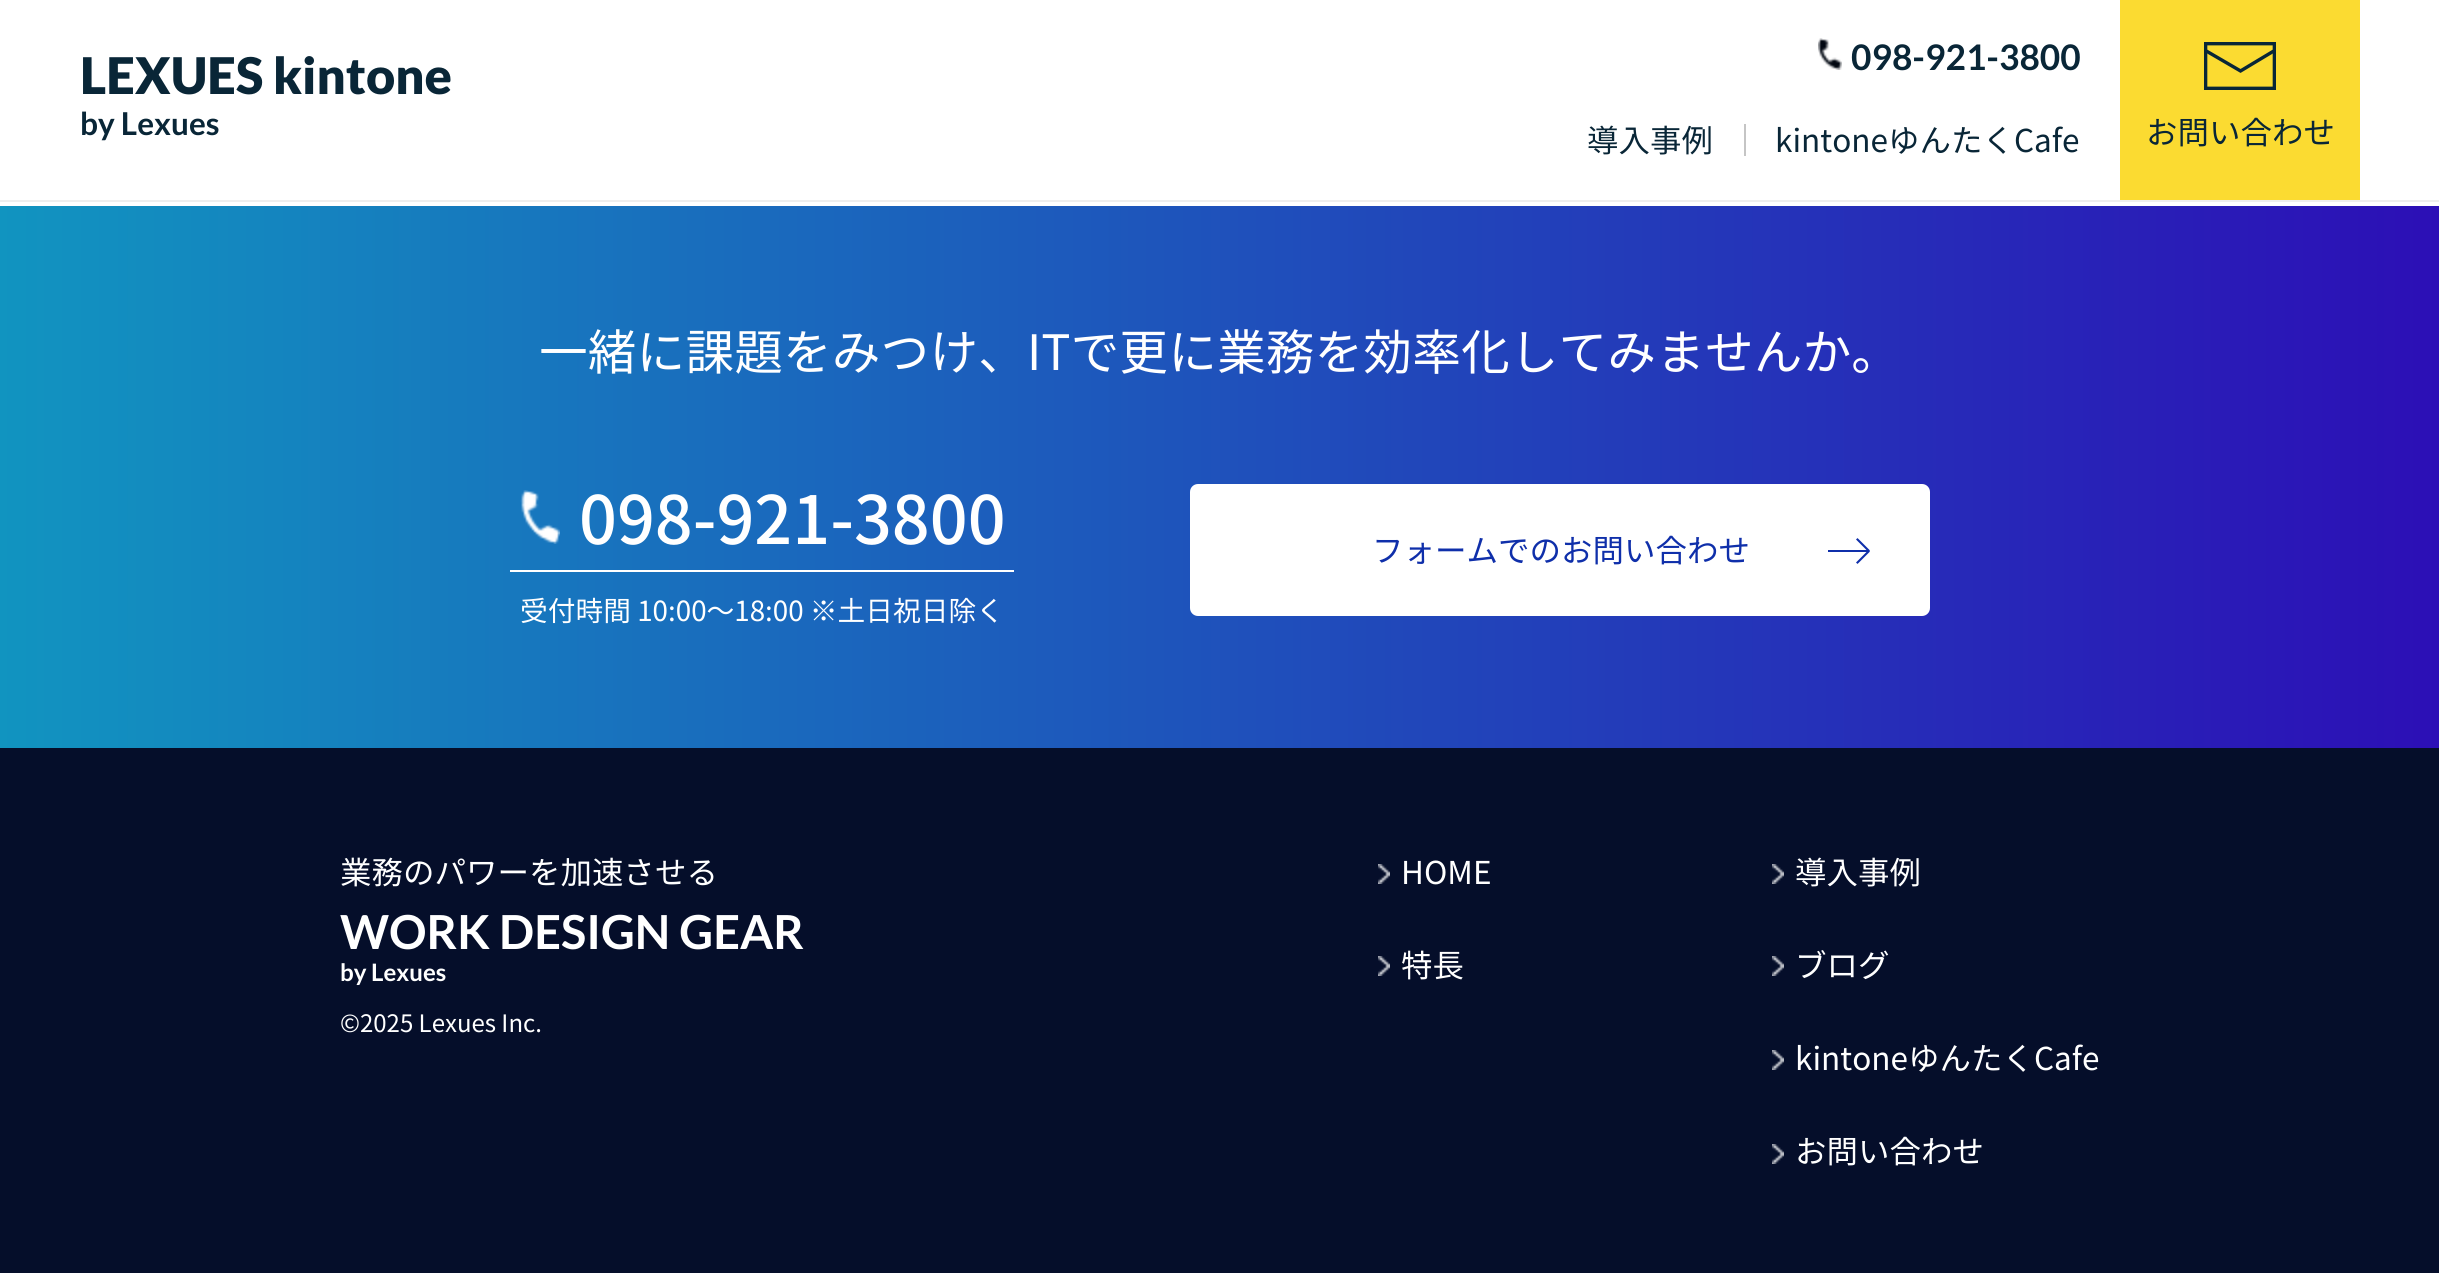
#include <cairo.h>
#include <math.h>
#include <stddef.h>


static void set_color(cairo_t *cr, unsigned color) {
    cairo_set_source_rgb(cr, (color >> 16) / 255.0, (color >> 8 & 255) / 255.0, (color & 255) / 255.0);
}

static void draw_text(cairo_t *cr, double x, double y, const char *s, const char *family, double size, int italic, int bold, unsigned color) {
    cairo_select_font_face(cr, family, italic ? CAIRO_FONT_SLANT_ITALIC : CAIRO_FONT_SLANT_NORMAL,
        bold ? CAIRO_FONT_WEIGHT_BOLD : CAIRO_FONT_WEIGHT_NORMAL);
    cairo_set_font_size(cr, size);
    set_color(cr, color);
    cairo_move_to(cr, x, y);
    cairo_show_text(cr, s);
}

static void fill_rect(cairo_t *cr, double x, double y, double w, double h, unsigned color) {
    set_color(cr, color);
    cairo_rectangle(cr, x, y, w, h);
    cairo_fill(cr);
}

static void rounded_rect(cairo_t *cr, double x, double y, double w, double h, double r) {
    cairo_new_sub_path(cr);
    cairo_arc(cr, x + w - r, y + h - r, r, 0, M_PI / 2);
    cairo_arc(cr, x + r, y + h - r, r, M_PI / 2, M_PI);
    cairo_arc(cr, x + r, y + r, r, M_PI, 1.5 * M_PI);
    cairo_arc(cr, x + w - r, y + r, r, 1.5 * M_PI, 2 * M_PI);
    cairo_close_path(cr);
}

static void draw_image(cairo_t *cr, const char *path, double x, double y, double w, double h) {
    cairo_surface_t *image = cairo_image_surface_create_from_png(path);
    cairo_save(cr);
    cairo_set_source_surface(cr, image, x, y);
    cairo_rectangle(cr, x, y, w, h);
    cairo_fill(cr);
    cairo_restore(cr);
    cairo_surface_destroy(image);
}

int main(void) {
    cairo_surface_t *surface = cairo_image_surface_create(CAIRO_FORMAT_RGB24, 2439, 1273);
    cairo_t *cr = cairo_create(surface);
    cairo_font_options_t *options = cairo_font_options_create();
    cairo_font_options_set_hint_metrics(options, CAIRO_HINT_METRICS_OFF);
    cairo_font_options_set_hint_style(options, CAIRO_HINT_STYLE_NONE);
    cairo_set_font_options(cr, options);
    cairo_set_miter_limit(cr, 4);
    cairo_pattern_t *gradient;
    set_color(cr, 0xFFFFFF);
    cairo_paint(cr);
    fill_rect(cr, 0, 200, 2439, 2, 0xEEEEEE);
    draw_text(cr, 80, 94, "LEXUES kintone", "Lato Black", 50.5, 0, 0, 0x092637);
    draw_text(cr, 80, 135, "by Lexues", "Lato", 31.5, 0, 1, 0x092637);
    draw_image(cr, "assets/img1.png", 1818, 38, 24, 32);
    draw_text(cr, 1851, 70, "098-921-3800", "Lato", 35.25, 0, 1, 0x092637);
    fill_rect(cr, 1744, 124, 2, 32, 0xC5C5C5);
    draw_text(cr, 1587, 152, "導入事例", "Noto Sans CJK JP", 31.5, 0, 0, 0x092637);
    draw_text(cr, 1775, 152, "kintoneゆんたくCafe", "Noto Sans CJK JP", 31.5, 0, 0, 0x092637);
    fill_rect(cr, 2120, 0, 240, 200, 0xFBDB31);
    draw_image(cr, "assets/img2.png", 2204, 42, 72, 48);
    draw_text(cr, 2146, 144, "お問い合わせ", "Noto Sans CJK JP", 31.5, 0, 0, 0x092637);
    gradient = cairo_pattern_create_linear(0, 477, 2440, 477);
    cairo_pattern_add_color_stop_rgba(gradient, 0, 0.067, 0.58, 0.753, 1);
    cairo_pattern_add_color_stop_rgba(gradient, 1, 0.173, 0.059, 0.714, 1);
    cairo_set_source(cr, gradient);
    cairo_pattern_destroy(gradient);
    cairo_rectangle(cr, 0, 206, 2439, 542);
    cairo_fill(cr);
    draw_text(cr, 539, 370, "一緒に課題をみつけ、ITで更に業務を効率化してみませんか。", "Noto Sans CJK JP", 48.8, 0, 0, 0xFFFFFF);
    fill_rect(cr, 510, 570, 504, 2, 0xFFFFFF);
    draw_image(cr, "assets/img3.png", 520, 490, 40, 54);
    draw_text(cr, 579, 544, "098-921-3800", "Noto Sans CJK JP Medium", 66.5, 0, 0, 0xFFFFFF);
    draw_text(cr, 520, 621, "受付時間 10:00〜18:00 ※土日祝日除く", "Noto Sans CJK JP", 27.75, 0, 0, 0xFFFFFF);
    rounded_rect(cr, 1190, 484, 740, 132, 8);
    cairo_fill(cr);
    draw_image(cr, "assets/img4.png", 1828, 538, 42, 26);
    draw_text(cr, 1372, 562, "フォームでのお問い合わせ", "Noto Sans CJK JP", 31.5, 0, 0, 0x0F2FAA);
    fill_rect(cr, 0, 748, 2439, 525, 0x050E2A);
    draw_text(cr, 340, 884, "業務のパワーを加速させる", "Noto Sans CJK JP", 31.5, 0, 0, 0xFFFFFF);
    draw_text(cr, 340, 949, "WORK DESIGN GEAR", "Lato", 46.9, 0, 1, 0xFFFFFF);
    draw_text(cr, 340, 981, "by Lexues", "Lato", 24, 0, 1, 0xFFFFFF);
    draw_text(cr, 340, 1032, "©2025 Lexues Inc.", "Noto Sans CJK JP", 24, 0, 0, 0xFFFFFF);
    draw_image(cr, "assets/img5.png", 1378, 864, 12, 20);
    draw_text(cr, 1401, 884, "HOME", "Noto Sans CJK JP", 31.5, 0, 0, 0xFFFFFF);
    draw_image(cr, "assets/img5.png", 1378, 956, 12, 20);
    draw_text(cr, 1401, 977, "特長", "Noto Sans CJK JP", 31.5, 0, 0, 0xFFFFFF);
    draw_image(cr, "assets/img5.png", 1772, 864, 12, 20);
    draw_text(cr, 1795, 884, "導入事例", "Noto Sans CJK JP", 31.5, 0, 0, 0xFFFFFF);
    draw_image(cr, "assets/img5.png", 1772, 956, 12, 20);
    draw_text(cr, 1795, 977, "ブログ", "Noto Sans CJK JP", 31.5, 0, 0, 0xFFFFFF);
    draw_image(cr, "assets/img5.png", 1772, 1050, 12, 20);
    draw_text(cr, 1795, 1070, "kintoneゆんたくCafe", "Noto Sans CJK JP", 31.5, 0, 0, 0xFFFFFF);
    draw_image(cr, "assets/img5.png", 1772, 1144, 12, 20);
    draw_text(cr, 1795, 1163, "お問い合わせ", "Noto Sans CJK JP", 31.5, 0, 0, 0xFFFFFF);
    cairo_surface_write_to_png(surface, "output.png");
    cairo_font_options_destroy(options);
    cairo_destroy(cr);
    cairo_surface_destroy(surface);
    return 0;
}
